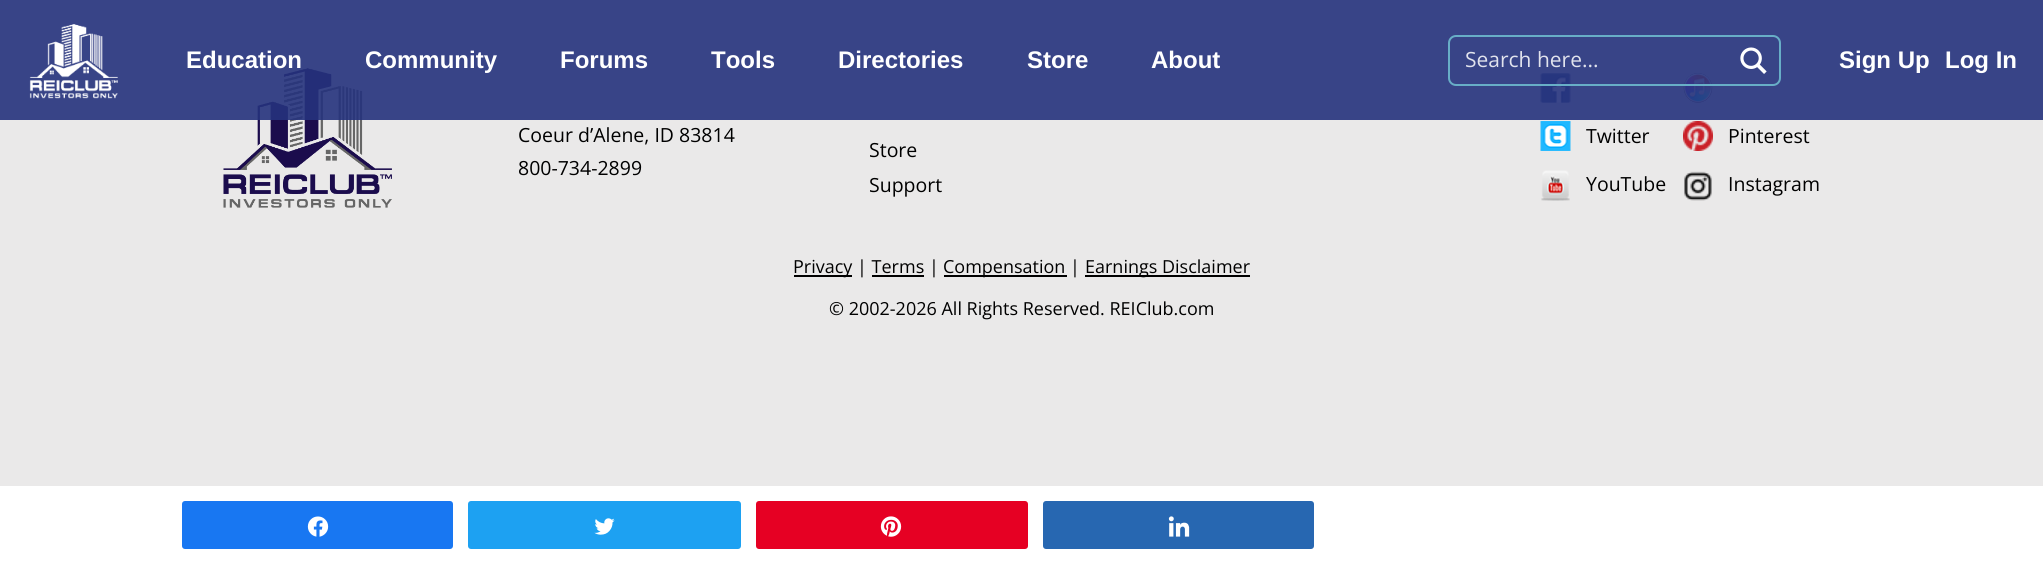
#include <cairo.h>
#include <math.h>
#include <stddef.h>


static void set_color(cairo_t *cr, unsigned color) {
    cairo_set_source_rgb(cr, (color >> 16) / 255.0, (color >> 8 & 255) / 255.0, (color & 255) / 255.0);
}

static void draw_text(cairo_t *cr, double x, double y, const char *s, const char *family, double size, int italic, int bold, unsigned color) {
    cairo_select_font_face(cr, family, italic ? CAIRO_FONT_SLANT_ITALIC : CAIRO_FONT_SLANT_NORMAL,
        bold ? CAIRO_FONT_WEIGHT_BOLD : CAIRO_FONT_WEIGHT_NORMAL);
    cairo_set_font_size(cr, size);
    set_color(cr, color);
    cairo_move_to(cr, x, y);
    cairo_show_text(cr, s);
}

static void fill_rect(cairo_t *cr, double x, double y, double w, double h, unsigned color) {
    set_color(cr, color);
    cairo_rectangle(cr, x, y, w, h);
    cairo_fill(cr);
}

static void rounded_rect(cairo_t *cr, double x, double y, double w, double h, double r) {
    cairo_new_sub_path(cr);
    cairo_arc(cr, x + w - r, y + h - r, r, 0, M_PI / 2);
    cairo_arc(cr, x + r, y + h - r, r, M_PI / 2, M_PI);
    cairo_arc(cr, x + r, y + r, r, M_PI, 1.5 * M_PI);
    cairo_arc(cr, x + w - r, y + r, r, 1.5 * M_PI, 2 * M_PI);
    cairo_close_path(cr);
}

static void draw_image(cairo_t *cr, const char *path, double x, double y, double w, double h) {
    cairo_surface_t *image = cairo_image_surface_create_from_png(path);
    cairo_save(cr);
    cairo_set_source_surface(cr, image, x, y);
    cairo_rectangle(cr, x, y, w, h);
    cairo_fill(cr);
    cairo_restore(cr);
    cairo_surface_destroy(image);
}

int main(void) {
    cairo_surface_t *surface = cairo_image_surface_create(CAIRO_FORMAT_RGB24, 2043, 567);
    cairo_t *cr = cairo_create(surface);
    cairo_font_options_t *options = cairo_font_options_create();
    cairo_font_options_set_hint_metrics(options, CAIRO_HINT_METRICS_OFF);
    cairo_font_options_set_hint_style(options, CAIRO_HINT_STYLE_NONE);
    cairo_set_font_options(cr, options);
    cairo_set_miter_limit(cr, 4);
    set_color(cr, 0xEAE9E9);
    cairo_paint(cr);
    draw_image(cr, "assets/img3.png", 223, 68, 169, 140);
    draw_image(cr, "assets/img4.png", 1540, 73, 31, 30);
    draw_image(cr, "assets/img7.png", 1683, 73, 30, 30);
    cairo_set_source_rgba(cr, 0.145, 0.196, 0.49, 0.9);
    cairo_rectangle(cr, 0, 0, 2043, 120);
    cairo_fill(cr);
    draw_image(cr, "assets/img1.png", 29, 24, 89, 75);
    draw_text(cr, 186, 68, "Education", "Liberation Sans", 24, 0, 1, 0xFFFFFF);
    draw_text(cr, 365, 68, "Community", "Liberation Sans", 24, 0, 1, 0xFFFFFF);
    draw_text(cr, 560, 68, "Forums", "Liberation Sans", 24, 0, 1, 0xFFFFFF);
    draw_text(cr, 711, 68, "Tools", "Liberation Sans", 24, 0, 1, 0xFFFFFF);
    draw_text(cr, 838, 68, "Directories", "Liberation Sans", 24, 0, 1, 0xFFFFFF);
    draw_text(cr, 1027, 68, "Store", "Liberation Sans", 24, 0, 1, 0xFFFFFF);
    draw_text(cr, 1151, 68, "About", "Liberation Sans", 24, 0, 1, 0xFFFFFF);
    rounded_rect(cr, 1449, 36, 331, 49, 7);
    set_color(cr, 0x68AEC7);
    cairo_stroke(cr);
    draw_text(cr, 1465, 67, "Search here...", "Open Sans", 21, 0, 0, 0xE1E3ED);
    draw_image(cr, "assets/img2.png", 1740, 47, 27, 27);
    draw_text(cr, 1839, 68, "Sign Up", "Liberation Sans", 24, 0, 1, 0xFFFFFF);
    draw_text(cr, 1945, 68, "Log In", "Liberation Sans", 24, 0, 1, 0xFFFFFF);
    draw_text(cr, 518, 142, "Coeur d’Alene, ID 83814", "Open Sans", 19.5, 0, 0, 0x000000);
    draw_text(cr, 518, 175, "800-734-2899", "Open Sans", 19.5, 0, 0, 0x000000);
    draw_text(cr, 869, 157, "Store", "Open Sans", 19.5, 0, 0, 0x000000);
    draw_text(cr, 869, 192, "Support", "Open Sans", 19.5, 0, 0, 0x000000);
    draw_image(cr, "assets/img5.png", 1540, 121, 31, 30);
    draw_text(cr, 1586, 143, "Twitter", "Open Sans", 19.5, 0, 0, 0x000000);
    draw_image(cr, "assets/img6.png", 1541, 170, 29, 31);
    draw_text(cr, 1586, 191, "YouTube", "Open Sans", 19.5, 0, 0, 0x000000);
    draw_image(cr, "assets/img8.png", 1683, 121, 30, 30);
    draw_text(cr, 1728, 143, "Pinterest", "Open Sans", 19.5, 0, 0, 0x000000);
    draw_image(cr, "assets/img9.png", 1684, 171, 28, 30);
    draw_text(cr, 1728, 191, "Instagram", "Open Sans", 19.5, 0, 0, 0x000000);
    fill_rect(cr, 794, 275, 58, 2, 0x000000);
    draw_text(cr, 793, 273, "Privacy | Terms |", "Open Sans", 18, 0, 0, 0x000000);
    fill_rect(cr, 944, 275, 123, 2, 0x000000);
    draw_text(cr, 943, 273, "Compensation |", "Open Sans", 18, 0, 0, 0x000000);
    fill_rect(cr, 1085, 275, 165, 2, 0x000000);
    draw_text(cr, 1085, 273, "Earnings Disclaimer", "Open Sans", 18, 0, 0, 0x000000);
    fill_rect(cr, 872, 275, 52, 2, 0x000000);
    draw_text(cr, 829, 315, "© 2002-2026 All Rights Reserved. REIClub.com", "Open Sans", 18, 0, 0, 0x000000);
    fill_rect(cr, 0, 486, 2043, 81, 0xFFFFFF);
    set_color(cr, 0x1877F2);
    rounded_rect(cr, 183, 502, 269, 46, 2);
    cairo_fill_preserve(cr);
    cairo_stroke(cr);
    draw_image(cr, "assets/img10.png", 307, 516, 22, 21);
    set_color(cr, 0x1DA1F2);
    rounded_rect(cr, 469, 502, 271, 46, 2);
    cairo_fill_preserve(cr);
    cairo_stroke(cr);
    draw_image(cr, "assets/img11.png", 594, 518, 21, 17);
    set_color(cr, 0xE60023);
    rounded_rect(cr, 757, 502, 270, 46, 2);
    cairo_fill_preserve(cr);
    cairo_stroke(cr);
    draw_image(cr, "assets/img12.png", 880, 516, 22, 21);
    set_color(cr, 0x2767B1);
    rounded_rect(cr, 1044, 502, 269, 46, 2);
    cairo_fill_preserve(cr);
    cairo_stroke(cr);
    draw_image(cr, "assets/img13.png", 1168, 516, 22, 21);
    cairo_surface_write_to_png(surface, "output.png");
    cairo_font_options_destroy(options);
    cairo_destroy(cr);
    cairo_surface_destroy(surface);
    return 0;
}
